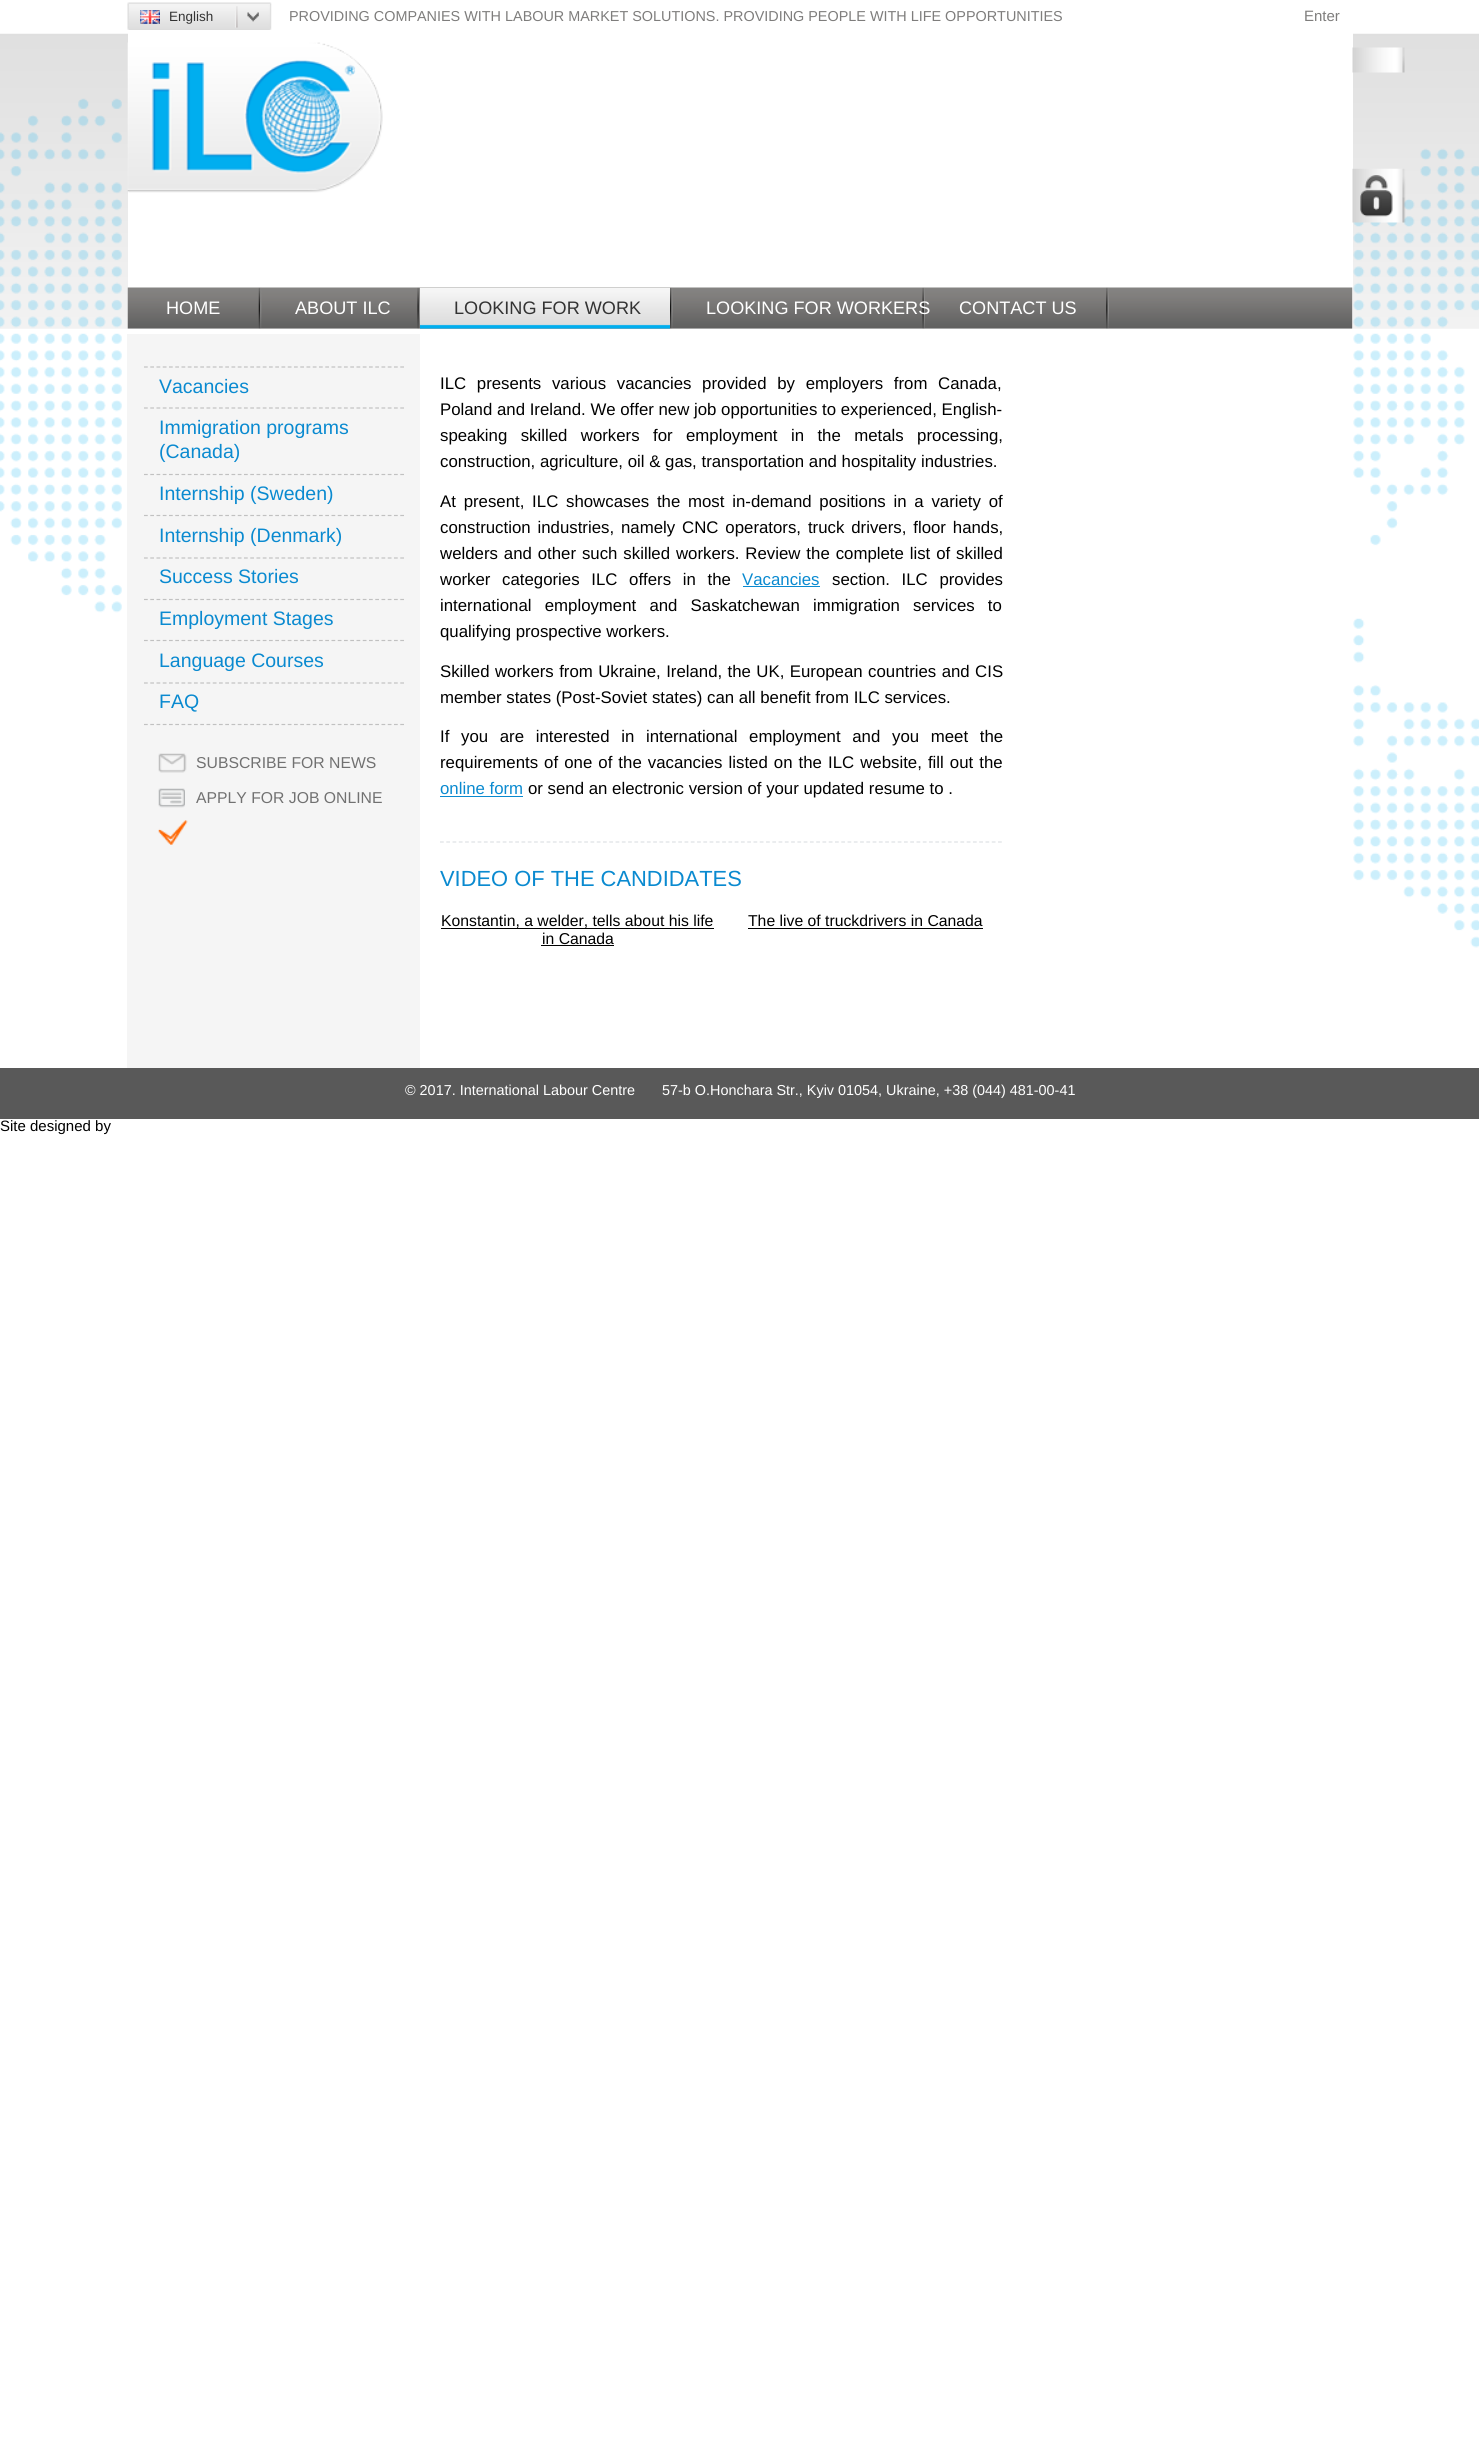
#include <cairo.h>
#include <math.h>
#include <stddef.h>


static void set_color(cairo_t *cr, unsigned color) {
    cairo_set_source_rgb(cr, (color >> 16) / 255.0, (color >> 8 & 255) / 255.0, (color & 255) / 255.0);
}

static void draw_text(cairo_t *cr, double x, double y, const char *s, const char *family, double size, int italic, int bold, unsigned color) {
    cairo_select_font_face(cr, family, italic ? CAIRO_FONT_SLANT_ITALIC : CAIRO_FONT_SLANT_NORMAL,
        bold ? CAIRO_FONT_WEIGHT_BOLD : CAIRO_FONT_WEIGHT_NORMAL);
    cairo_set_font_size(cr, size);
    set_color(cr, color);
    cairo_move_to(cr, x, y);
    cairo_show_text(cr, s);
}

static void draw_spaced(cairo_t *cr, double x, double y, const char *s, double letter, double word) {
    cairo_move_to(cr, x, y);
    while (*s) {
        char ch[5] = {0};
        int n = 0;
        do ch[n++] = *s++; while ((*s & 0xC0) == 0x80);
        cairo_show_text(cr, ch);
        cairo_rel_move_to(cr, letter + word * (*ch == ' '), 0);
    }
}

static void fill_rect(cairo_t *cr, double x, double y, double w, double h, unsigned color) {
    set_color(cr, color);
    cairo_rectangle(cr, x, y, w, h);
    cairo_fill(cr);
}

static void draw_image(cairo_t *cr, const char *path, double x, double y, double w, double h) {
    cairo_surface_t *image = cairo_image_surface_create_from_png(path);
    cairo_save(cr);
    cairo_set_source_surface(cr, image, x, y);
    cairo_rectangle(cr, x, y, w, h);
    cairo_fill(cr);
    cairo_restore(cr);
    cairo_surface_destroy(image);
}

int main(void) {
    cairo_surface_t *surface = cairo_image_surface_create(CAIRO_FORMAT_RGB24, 1479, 2445);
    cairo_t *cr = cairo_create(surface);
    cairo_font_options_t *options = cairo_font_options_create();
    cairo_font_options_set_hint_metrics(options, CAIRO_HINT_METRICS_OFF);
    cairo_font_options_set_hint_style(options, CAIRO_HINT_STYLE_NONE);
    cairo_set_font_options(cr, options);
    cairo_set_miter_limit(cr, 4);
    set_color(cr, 0xFFFFFF);
    cairo_paint(cr);
    draw_image(cr, "assets/img1.png", 0, 33, 1479, 296);
    draw_image(cr, "assets/img2.png", 0, 98, 1479, 850);
    fill_rect(cr, 128, 33, 1225, 296, 0xFFFFFF);
    draw_image(cr, "assets/img3.png", 127, 2, 3, 28);
    draw_image(cr, "assets/img4.png", 130, 2, 142, 28);
    draw_image(cr, "assets/img5.png", 140, 10, 20, 14);
    draw_text(cr, 169, 21, "English", "Liberation Sans", 13.5, 0, 0, 0x333333);
    draw_text(cr, 289, 21, "PROVIDING COMPANIES WITH LABOUR MARKET SOLUTIONS. PROVIDING PEOPLE WITH LIFE OPPORTUNITIES", "Liberation Sans", 14.4, 0, 0, 0x7E7D7C);
    draw_text(cr, 1304, 21, "Enter", "Liberation Sans", 15, 0, 0, 0x7E7D7C);
    draw_image(cr, "assets/img6.png", 1352, 47, 53, 26);
    draw_image(cr, "assets/img7.png", 1352, 168, 54, 55);
    draw_image(cr, "assets/img8.png", 1360, 175, 33, 42);
    draw_image(cr, "assets/img9.png", 127, 42, 256, 151);
    draw_image(cr, "assets/img10.png", 127, 287, 1226, 42);
    draw_image(cr, "assets/img11.png", 258, 287, 4, 42);
    draw_text(cr, 166, 314, "HOME", "Liberation Sans", 18.1, 0, 0, 0xFFFFFF);
    draw_image(cr, "assets/img12.png", 417, 287, 3, 42);
    draw_text(cr, 295, 314, "ABOUT ILC", "Liberation Sans", 18.1, 0, 0, 0xFFFFFF);
    draw_image(cr, "assets/img13.png", 670, 287, 3, 42);
    draw_image(cr, "assets/img14.png", 420, 287, 250, 42);
    draw_text(cr, 454, 314, "LOOKING FOR WORK", "Liberation Sans", 18.1, 0, 0, 0x333333);
    draw_image(cr, "assets/img12.png", 922, 287, 3, 42);
    draw_text(cr, 706, 314, "LOOKING FOR WORKERS", "Liberation Sans", 18.1, 0, 0, 0xFFFFFF);
    draw_image(cr, "assets/img15.png", 1106, 287, 3, 42);
    draw_text(cr, 959, 314, "CONTACT US", "Liberation Sans", 18.1, 0, 0, 0xFFFFFF);
    fill_rect(cr, 127, 334, 293, 734, 0xF5F5F5);
    cairo_new_path(cr);
    cairo_move_to(cr, 144, 367);
    cairo_line_to(cr, 404, 367);
    set_color(cr, 0xC1C1C1);
    cairo_set_line_width(cr, 1.2);
    cairo_set_dash(cr, (double[]){3.75, 2.5}, 2, 0);
    cairo_stroke(cr);
    cairo_new_path(cr);
    cairo_move_to(cr, 144, 408);
    cairo_line_to(cr, 404, 408);
    cairo_stroke(cr);
    draw_text(cr, 159, 393, "Vacancies", "Liberation Sans", 19.5, 0, 0, 0x0A8AD0);
    cairo_new_path(cr);
    cairo_move_to(cr, 144, 474.5);
    cairo_line_to(cr, 404, 474.5);
    set_color(cr, 0xC1C1C1);
    cairo_stroke(cr);
    draw_text(cr, 159, 434, "Immigration programs", "Liberation Sans", 19.5, 0, 0, 0x0A8AD0);
    draw_text(cr, 159, 458, "(Canada)", "Liberation Sans", 19.5, 0, 0, 0x0A8AD0);
    cairo_new_path(cr);
    cairo_move_to(cr, 144, 515.5);
    cairo_line_to(cr, 404, 515.5);
    set_color(cr, 0xC1C1C1);
    cairo_stroke(cr);
    draw_text(cr, 159, 500, "Internship (Sweden)", "Liberation Sans", 19.5, 0, 0, 0x0A8AD0);
    cairo_new_path(cr);
    cairo_move_to(cr, 144, 558);
    cairo_line_to(cr, 404, 558);
    set_color(cr, 0xC1C1C1);
    cairo_stroke(cr);
    draw_text(cr, 159, 542, "Internship (Denmark)", "Liberation Sans", 19.5, 0, 0, 0x0A8AD0);
    cairo_new_path(cr);
    cairo_move_to(cr, 144, 599.5);
    cairo_line_to(cr, 404, 599.5);
    set_color(cr, 0xC1C1C1);
    cairo_stroke(cr);
    draw_text(cr, 159, 583, "Success Stories", "Liberation Sans", 19.5, 0, 0, 0x0A8AD0);
    cairo_new_path(cr);
    cairo_move_to(cr, 144, 640.5);
    cairo_line_to(cr, 404, 640.5);
    set_color(cr, 0xC1C1C1);
    cairo_stroke(cr);
    draw_text(cr, 159, 625, "Employment Stages", "Liberation Sans", 19.5, 0, 0, 0x0A8AD0);
    cairo_new_path(cr);
    cairo_move_to(cr, 144, 683);
    cairo_line_to(cr, 404, 683);
    set_color(cr, 0xC1C1C1);
    cairo_stroke(cr);
    draw_text(cr, 159, 667, "Language Courses", "Liberation Sans", 19.5, 0, 0, 0x0A8AD0);
    cairo_new_path(cr);
    cairo_move_to(cr, 144, 724.5);
    cairo_line_to(cr, 404, 724.5);
    set_color(cr, 0xC1C1C1);
    cairo_stroke(cr);
    draw_text(cr, 159, 708, "FAQ", "Liberation Sans", 19.5, 0, 0, 0x0A8AD0);
    draw_image(cr, "assets/img16.png", 158, 753, 29, 20);
    draw_text(cr, 196, 768, "SUBSCRIBE FOR NEWS", "Liberation Sans", 15.75, 0, 0, 0x717171);
    draw_image(cr, "assets/img17.png", 158, 788, 27, 20);
    draw_text(cr, 196, 803, "APPLY FOR JOB ONLINE", "Liberation Sans", 15.75, 0, 0, 0x717171);
    draw_image(cr, "assets/img18.png", 158, 820, 30, 25);
    cairo_set_font_size(cr, 16.8);
    set_color(cr, 0x000000);
    draw_spaced(cr, 440, 389, "ILC presents various vacancies provided by employers from Canada,", 0, 6);
    draw_text(cr, 440, 415, "Poland and Ireland. We offer new job opportunities to experienced, English-", "Liberation Sans", 16.8, 0, 0, 0x000000);
    draw_spaced(cr, 440, 441, "speaking skilled workers for employment in the metals processing,", 0, 8.75);
    draw_text(cr, 440, 467, "construction, agriculture, oil & gas, transportation and hospitality industries.", "Liberation Sans", 16.8, 0, 0, 0x000000);
    draw_spaced(cr, 440, 507, "At present, ILC showcases the most in-demand positions in a variety of", 0, 3.1);
    draw_spaced(cr, 440, 533, "construction industries, namely CNC operators, truck drivers, floor hands,", 0, 2.25);
    draw_spaced(cr, 440, 559, "welders and other such skilled workers. Review the complete list of skilled", 0, 1.25);
    draw_spaced(cr, 440, 585, "worker categories ILC offers in the", 0, 7);
    draw_text(cr, 742, 585, "Vacancies", "Liberation Sans", 16.8, 0, 0, 0x0A8AD0);
    fill_rect(cr, 743, 586, 77, 1, 0x0A8AD0);
    set_color(cr, 0x000000);
    draw_spaced(cr, 832, 585, "section. ILC provides", 0, 7);
    draw_spaced(cr, 440, 611, "international employment and Saskatchewan immigration services to", 0, 8.5);
    draw_text(cr, 440, 637, "qualifying prospective workers.", "Liberation Sans", 16.8, 0, 0, 0x000000);
    draw_spaced(cr, 440, 677, "Skilled workers from Ukraine, Ireland, the UK, European countries and CIS", 0, 0.75);
    draw_text(cr, 440, 703, "member states (Post-Soviet states) can all benefit from ILC services.", "Liberation Sans", 16.8, 0, 0, 0x000000);
    draw_spaced(cr, 440, 742, "If you are interested in international employment and you meet the", 0, 7);
    draw_spaced(cr, 440, 768, "requirements of one of the vacancies listed on the ILC website, fill out the", 0, 1.4);
    draw_text(cr, 440, 794, "online form", "Liberation Sans", 16.8, 0, 0, 0x0A8AD0);
    fill_rect(cr, 440, 796, 83, 1, 0x0A8AD0);
    draw_text(cr, 528, 794, "or send an electronic version of your updated resume to .", "Liberation Sans", 16.8, 0, 0, 0x000000);
    cairo_new_path(cr);
    cairo_move_to(cr, 440, 842);
    cairo_line_to(cr, 1002.5, 842);
    set_color(cr, 0xDEE1E4);
    cairo_set_dash(cr, (double[]){3.75, 2.52}, 2, 0);
    cairo_stroke(cr);
    draw_text(cr, 440, 886, "VIDEO OF THE CANDIDATES", "Liberation Sans", 21.9, 0, 0, 0x0A8AD0);
    draw_text(cr, 441, 926, "Konstantin, a welder, tells about his life", "Liberation Sans", 15.75, 0, 0, 0x000000);
    fill_rect(cr, 441, 928, 273, 1, 0x000000);
    draw_text(cr, 542, 944, "in Canada", "Liberation Sans", 15.75, 0, 0, 0x000000);
    fill_rect(cr, 541, 945, 73, 1, 0x000000);
    draw_text(cr, 748, 926, "The live of truckdrivers in Canada", "Liberation Sans", 15.75, 0, 0, 0x000000);
    fill_rect(cr, 748, 928, 235, 1, 0x000000);
    fill_rect(cr, 0, 1068, 1479, 51, 0x595959);
    draw_text(cr, 405, 1095, "© 2017. International Labour Centre", "Liberation Sans", 14.4, 0, 0, 0xFFFFFF);
    draw_text(cr, 662, 1095, "57-b O.Honchara Str., Kyiv 01054, Ukraine, +38 (044) 481-00-41", "Liberation Sans", 14.4, 0, 0, 0xFFFFFF);
    draw_text(cr, 0, 1131, "Site designed by", "Liberation Sans", 15, 0, 0, 0x000000);
    cairo_surface_write_to_png(surface, "output.png");
    cairo_font_options_destroy(options);
    cairo_destroy(cr);
    cairo_surface_destroy(surface);
    return 0;
}
